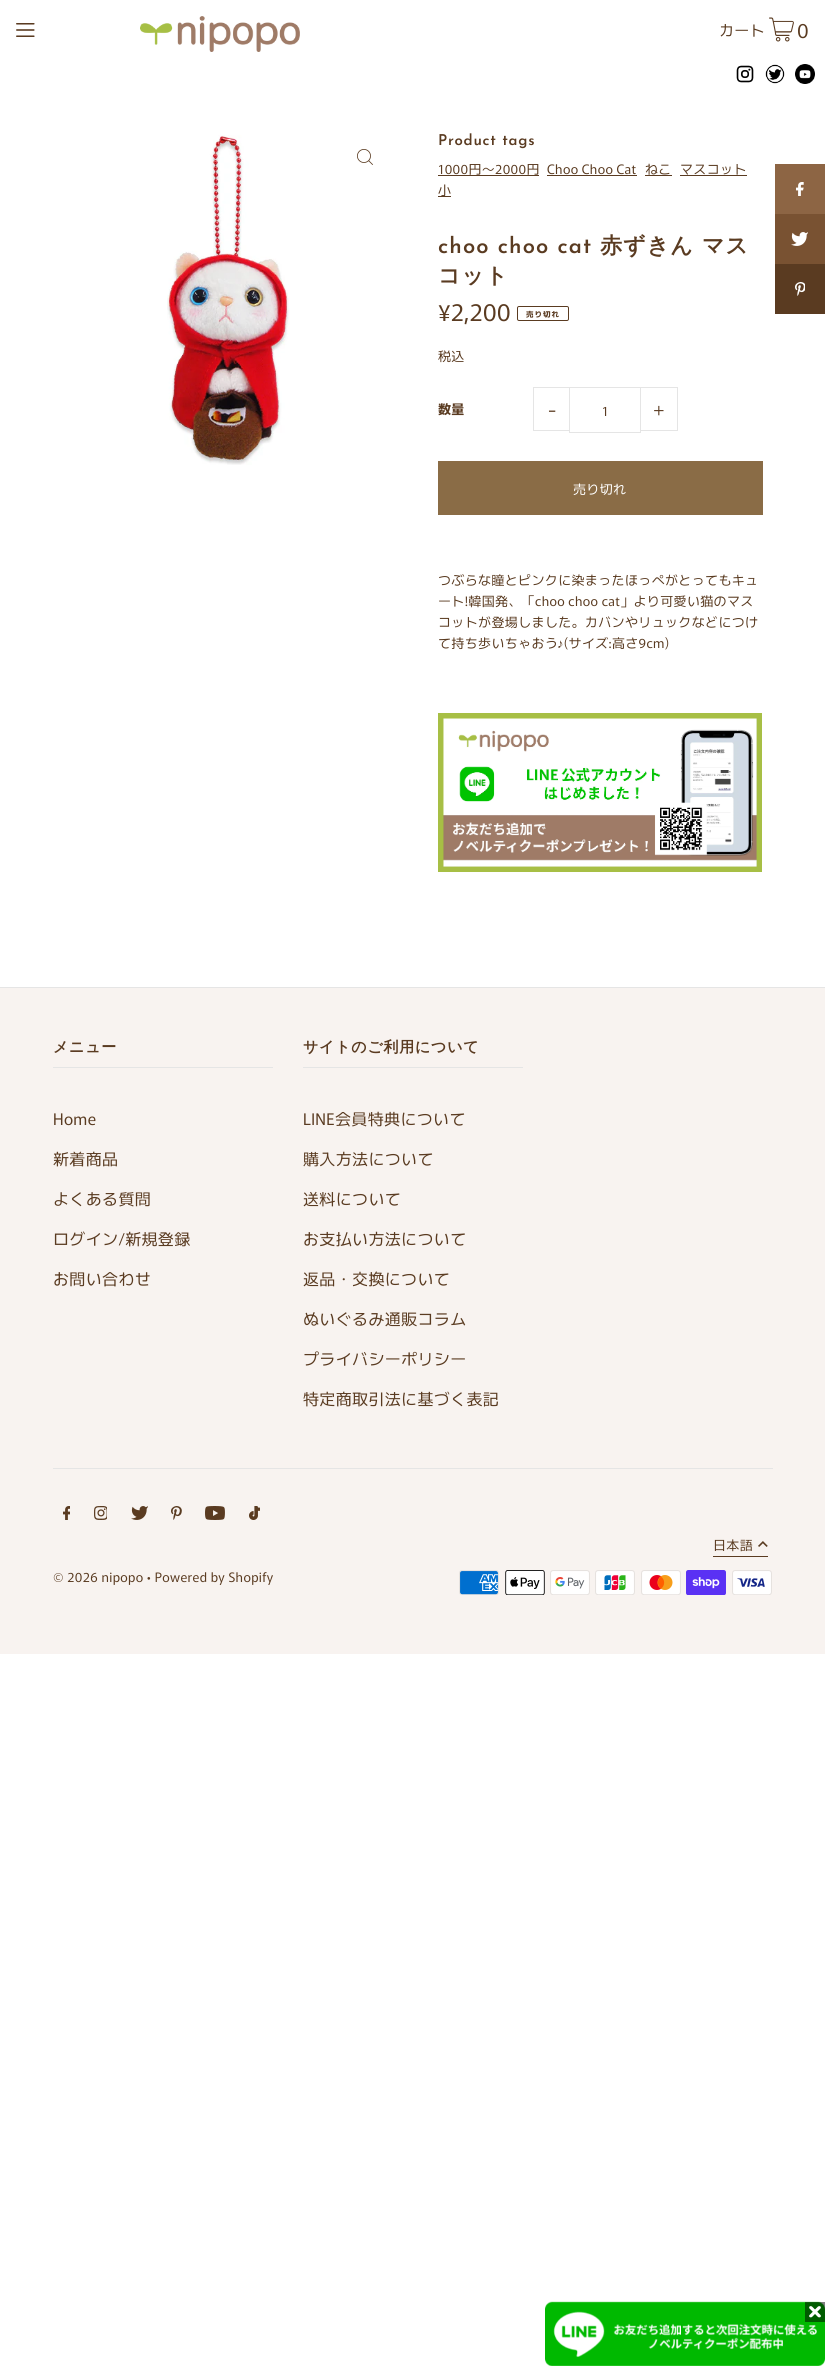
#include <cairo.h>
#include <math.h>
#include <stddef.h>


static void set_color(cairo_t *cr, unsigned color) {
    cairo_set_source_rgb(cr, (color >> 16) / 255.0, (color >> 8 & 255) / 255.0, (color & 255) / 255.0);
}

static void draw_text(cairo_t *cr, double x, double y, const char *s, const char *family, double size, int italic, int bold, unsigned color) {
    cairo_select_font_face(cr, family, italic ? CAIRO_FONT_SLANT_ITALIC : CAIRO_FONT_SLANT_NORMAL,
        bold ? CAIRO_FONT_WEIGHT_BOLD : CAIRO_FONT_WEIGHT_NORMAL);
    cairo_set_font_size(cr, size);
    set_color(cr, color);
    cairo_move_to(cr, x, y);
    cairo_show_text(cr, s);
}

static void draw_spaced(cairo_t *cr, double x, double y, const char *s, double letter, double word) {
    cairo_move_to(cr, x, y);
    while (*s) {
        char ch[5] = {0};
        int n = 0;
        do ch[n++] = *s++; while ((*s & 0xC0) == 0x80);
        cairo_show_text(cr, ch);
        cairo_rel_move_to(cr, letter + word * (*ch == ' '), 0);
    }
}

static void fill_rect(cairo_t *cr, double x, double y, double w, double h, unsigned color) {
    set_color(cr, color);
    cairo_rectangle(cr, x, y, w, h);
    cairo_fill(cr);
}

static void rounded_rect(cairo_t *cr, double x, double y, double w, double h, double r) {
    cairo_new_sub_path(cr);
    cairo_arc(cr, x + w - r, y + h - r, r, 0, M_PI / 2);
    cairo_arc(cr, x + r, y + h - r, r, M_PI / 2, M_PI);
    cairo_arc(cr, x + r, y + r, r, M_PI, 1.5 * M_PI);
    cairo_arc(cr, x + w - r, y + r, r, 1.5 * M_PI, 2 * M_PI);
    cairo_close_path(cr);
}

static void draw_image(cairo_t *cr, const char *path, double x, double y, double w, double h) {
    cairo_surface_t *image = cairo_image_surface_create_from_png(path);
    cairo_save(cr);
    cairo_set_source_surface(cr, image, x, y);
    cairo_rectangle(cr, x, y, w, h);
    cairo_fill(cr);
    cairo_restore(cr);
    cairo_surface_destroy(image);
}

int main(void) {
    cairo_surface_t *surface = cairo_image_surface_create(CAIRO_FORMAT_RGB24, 825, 2366);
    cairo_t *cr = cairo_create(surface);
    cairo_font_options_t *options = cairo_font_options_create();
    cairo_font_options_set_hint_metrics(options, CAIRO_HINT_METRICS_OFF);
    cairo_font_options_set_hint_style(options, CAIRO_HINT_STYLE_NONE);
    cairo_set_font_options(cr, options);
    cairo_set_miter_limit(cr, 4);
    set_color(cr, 0xFFFFFF);
    cairo_paint(cr);
    draw_image(cr, "assets/img1.png", 16, 23, 19, 14);
    draw_image(cr, "assets/img2.png", 140, 16, 160, 36);
    cairo_select_font_face(cr, "Murecho", CAIRO_FONT_SLANT_NORMAL, CAIRO_FONT_WEIGHT_NORMAL);
    cairo_set_font_size(cr, 15);
    set_color(cr, 0x5A3B21);
    draw_spaced(cr, 719, 36, "カート", 0.35, 0);
    draw_image(cr, "assets/img3.png", 769, 17, 25, 25);
    cairo_set_font_size(cr, 20);
    draw_spaced(cr, 797, 38, "0", 0.35, 0);
    draw_image(cr, "assets/img4.png", 736, 65, 18, 18);
    draw_image(cr, "assets/img5.png", 765, 64, 20, 20);
    draw_image(cr, "assets/img6.png", 795, 64, 20, 20);
    draw_image(cr, "assets/img7.png", 167, 135, 123, 330);
    draw_image(cr, "assets/img8.png", 357, 149, 16, 16);
    cairo_select_font_face(cr, "Josefin Sans SemiBold", CAIRO_FONT_SLANT_NORMAL, CAIRO_FONT_WEIGHT_NORMAL);
    cairo_set_font_size(cr, 15);
    draw_spaced(cr, 438, 145, "Product tags", 0.75, 0);
    cairo_select_font_face(cr, "Murecho", CAIRO_FONT_SLANT_NORMAL, CAIRO_FONT_WEIGHT_NORMAL);
    cairo_set_font_size(cr, 13);
    draw_spaced(cr, 438, 174, "1000円～2000円", 0.35, 0);
    fill_rect(cr, 438, 175, 101, 1, 0x5A3B21);
    draw_spaced(cr, 547, 174, "Choo Choo Cat", 0.35, 0);
    fill_rect(cr, 547, 175, 90, 1, 0x5A3B21);
    draw_spaced(cr, 645, 174, "ねこ", 0.35, 0);
    fill_rect(cr, 645, 175, 27, 1, 0x5A3B21);
    draw_spaced(cr, 680, 174, "マスコット", 0.35, 0);
    fill_rect(cr, 680, 175, 67, 1, 0x5A3B21);
    fill_rect(cr, 438, 196, 13, 1, 0x5A3B21);
    draw_spaced(cr, 438, 195, "小", 0.35, 0);
    cairo_select_font_face(cr, "Josefin Sans SemiBold", CAIRO_FONT_SLANT_NORMAL, CAIRO_FONT_WEIGHT_NORMAL);
    cairo_set_font_size(cr, 22);
    draw_spaced(cr, 438, 253, "choo choo cat", 1.1, 0);
    cairo_select_font_face(cr, "WenQuanYi Zen Hei", CAIRO_FONT_SLANT_NORMAL, CAIRO_FONT_WEIGHT_BOLD);
    draw_spaced(cr, 600, 253, "赤ずきん", 1.1, 0);
    draw_spaced(cr, 702, 253, "マス", 1.1, 0);
    draw_spaced(cr, 438, 283, "コット", 1.1, 0);
    draw_text(cr, 438, 321, "¥2,200", "Murecho", 24, 0, 0, 0x5A3B21);
    rounded_rect(cr, 517.5, 306.5, 51, 14, 1.5);
    cairo_set_line_width(cr, 1);
    cairo_stroke(cr);
    cairo_select_font_face(cr, "Murecho", CAIRO_FONT_SLANT_NORMAL, CAIRO_FONT_WEIGHT_BOLD);
    cairo_set_font_size(cr, 7.5);
    draw_spaced(cr, 526, 317, "売り切れ", 1, 0);
    cairo_select_font_face(cr, "Murecho", CAIRO_FONT_SLANT_NORMAL, CAIRO_FONT_WEIGHT_NORMAL);
    cairo_set_font_size(cr, 13);
    draw_spaced(cr, 438, 361, "税込", 0.35, 0);
    cairo_select_font_face(cr, "Murecho", CAIRO_FONT_SLANT_NORMAL, CAIRO_FONT_WEIGHT_BOLD);
    draw_spaced(cr, 438, 414, "数量", 0.35, 0);
    fill_rect(cr, 533, 387, 38, 1, 0xE5E5E5);
    fill_rect(cr, 533, 430, 38, 1, 0xE5E5E5);
    fill_rect(cr, 533, 387, 1, 44, 0xE5E5E5);
    draw_text(cr, 548, 417, "-", "Murecho", 20, 0, 0, 0x5A3B21);
    fill_rect(cr, 570, 430, 1, 1, 0xFFFFFF);
    cairo_rectangle(cr, 569.5, 387.5, 71, 45);
    set_color(cr, 0xE5E5E5);
    cairo_stroke(cr);
    cairo_set_font_size(cr, 13);
    set_color(cr, 0x5A3B21);
    draw_spaced(cr, 602, 416, "1", 0.35, 0);
    fill_rect(cr, 640, 387, 38, 1, 0xE5E5E5);
    fill_rect(cr, 677, 387, 1, 44, 0xE5E5E5);
    fill_rect(cr, 640, 430, 38, 1, 0xE5E5E5);
    draw_text(cr, 653, 417, "+", "Murecho", 20, 0, 0, 0x5A3B21);
    fill_rect(cr, 438, 461, 325, 54, 0x8A6C46);
    cairo_set_font_size(cr, 13);
    set_color(cr, 0xFFFFFF);
    draw_spaced(cr, 573, 494, "売り切れ", 0.35, 0);
    set_color(cr, 0x5A3B21);
    draw_spaced(cr, 438, 585, "つぶらな瞳とピンクに染まったほっぺがとってもキュ", 0.35, 0);
    draw_spaced(cr, 438, 606, "ート!韓国発、「choo choo cat」より可愛い猫のマス", 0.35, 0);
    draw_spaced(cr, 438, 627, "コットが登場しました。カバンやリュックなどにつけ", 0.35, 0);
    draw_spaced(cr, 438, 648, "て持ち歩いちゃおう", 0.35, 0);
    cairo_select_font_face(cr, "Liberation Sans", CAIRO_FONT_SLANT_NORMAL, CAIRO_FONT_WEIGHT_NORMAL);
    draw_spaced(cr, 557, 648, "♪", 0.35, 0);
    cairo_select_font_face(cr, "Murecho", CAIRO_FONT_SLANT_NORMAL, CAIRO_FONT_WEIGHT_NORMAL);
    draw_spaced(cr, 564, 648, "(サイズ:高さ9cm)", 0.35, 0);
    draw_image(cr, "assets/img9.png", 438, 713, 324, 159);
    fill_rect(cr, 775, 164, 50, 50, 0x8D6544);
    draw_image(cr, "assets/img10.png", 796, 182, 8, 14);
    fill_rect(cr, 775, 214, 50, 50, 0x795232);
    draw_image(cr, "assets/img11.png", 791, 232, 17, 14);
    fill_rect(cr, 775, 264, 50, 50, 0x5A3B21);
    draw_image(cr, "assets/img12.png", 795, 282, 10, 14);
    fill_rect(cr, 0, 988, 825, 666, 0xF8F3F0);
    fill_rect(cr, 0, 987, 825, 1, 0xE5E5E5);
    fill_rect(cr, 53, 1067, 220, 1, 0xE5E5E5);
    cairo_select_font_face(cr, "WenQuanYi Zen Hei", CAIRO_FONT_SLANT_NORMAL, CAIRO_FONT_WEIGHT_BOLD);
    cairo_set_font_size(cr, 15);
    set_color(cr, 0x5A3B21);
    draw_spaced(cr, 53, 1052, "メニュー", 0.75, 0);
    cairo_select_font_face(cr, "Murecho", CAIRO_FONT_SLANT_NORMAL, CAIRO_FONT_WEIGHT_NORMAL);
    cairo_set_font_size(cr, 16);
    draw_spaced(cr, 53, 1125, "Home", 0.35, 0);
    draw_spaced(cr, 53, 1165, "新着商品", 0.35, 0);
    draw_spaced(cr, 53, 1205, "よくある質問", 0.35, 0);
    draw_spaced(cr, 53, 1245, "ログイン/新規登録", 0.35, 0);
    draw_spaced(cr, 53, 1285, "お問い合わせ", 0.35, 0);
    fill_rect(cr, 303, 1067, 220, 1, 0xE5E5E5);
    cairo_select_font_face(cr, "WenQuanYi Zen Hei", CAIRO_FONT_SLANT_NORMAL, CAIRO_FONT_WEIGHT_BOLD);
    cairo_set_font_size(cr, 15);
    set_color(cr, 0x5A3B21);
    draw_spaced(cr, 303, 1052, "サイトのご利用について", 0.75, 0);
    cairo_select_font_face(cr, "Murecho", CAIRO_FONT_SLANT_NORMAL, CAIRO_FONT_WEIGHT_NORMAL);
    cairo_set_font_size(cr, 16);
    draw_spaced(cr, 303, 1125, "LINE会員特典について", 0.35, 0);
    draw_spaced(cr, 303, 1165, "購入方法について", 0.35, 0);
    draw_spaced(cr, 303, 1205, "送料について", 0.35, 0);
    draw_spaced(cr, 303, 1245, "お支払い方法について", 0.35, 0);
    draw_spaced(cr, 303, 1285, "返品・交換について", 0.35, 0);
    draw_spaced(cr, 303, 1325, "ぬいぐるみ通販コラム", 0.35, 0);
    draw_spaced(cr, 303, 1365, "プライバシーポリシー", 0.35, 0);
    draw_spaced(cr, 303, 1405, "特定商取引法に基づく表記", 0.35, 0);
    fill_rect(cr, 53, 1468, 720, 1, 0xE5E5E5);
    fill_rect(cr, 713, 1556, 55, 1, 0x5A3B21);
    cairo_set_font_size(cr, 13);
    draw_spaced(cr, 713, 1550, "日本語", 0.35, 0);
    draw_image(cr, "assets/img13.png", 758, 1541, 10, 6);
    draw_image(cr, "assets/img14.png", 459, 1570, 40, 25);
    draw_image(cr, "assets/img15.png", 505, 1570, 40, 25);
    draw_image(cr, "assets/img16.png", 550, 1570, 40, 25);
    draw_image(cr, "assets/img17.png", 595, 1570, 40, 25);
    draw_image(cr, "assets/img18.png", 641, 1570, 40, 25);
    draw_image(cr, "assets/img19.png", 686, 1570, 40, 25);
    draw_image(cr, "assets/img20.png", 732, 1570, 40, 25);
    draw_image(cr, "assets/img21.png", 63, 1506, 7, 14);
    draw_image(cr, "assets/img22.png", 94, 1506, 13, 14);
    draw_image(cr, "assets/img23.png", 131, 1506, 17, 14);
    draw_image(cr, "assets/img24.png", 171, 1506, 11, 14);
    draw_image(cr, "assets/img25.png", 205, 1506, 20, 14);
    draw_image(cr, "assets/img26.png", 249, 1506, 11, 14);
    draw_spaced(cr, 53, 1582, "© 2026 nipopo • Powered by Shopify", 0.35, 0);
    draw_image(cr, "assets/img27.png", 545, 2301, 280, 65);
    cairo_set_source_rgba(cr, 0, 0, 0, 0.5);
    cairo_rectangle(cr, 805, 2302, 20, 20);
    cairo_fill(cr);
    set_color(cr, 0xFFFFFF);
    cairo_new_path(cr);
    cairo_move_to(cr, 820.5, 2306.5);
    cairo_curve_to(cr, 821, 2307, 821, 2308, 820.5, 2308.5);
    cairo_line_to(cr, 812, 2317);
    cairo_curve_to(cr, 811, 2317.5, 810.5, 2317.5, 809.5, 2317);
    cairo_curve_to(cr, 809, 2316.5, 809, 2315.5, 809.5, 2315);
    cairo_line_to(cr, 818, 2306.5);
    cairo_curve_to(cr, 819, 2306, 819.5, 2306, 820.5, 2306.5);
    cairo_close_path(cr);
    cairo_fill(cr);
    cairo_new_path(cr);
    cairo_move_to(cr, 809.5, 2306.5);
    cairo_curve_to(cr, 810.5, 2306, 811, 2306, 812, 2306.5);
    cairo_line_to(cr, 820.5, 2315);
    cairo_curve_to(cr, 821, 2315.5, 821, 2316.5, 820.5, 2317);
    cairo_curve_to(cr, 819.5, 2317.5, 819, 2317.5, 818, 2317);
    cairo_line_to(cr, 809.5, 2308.5);
    cairo_curve_to(cr, 809, 2308, 809, 2307, 809.5, 2306.5);
    cairo_close_path(cr);
    cairo_fill(cr);
    cairo_surface_write_to_png(surface, "output.png");
    cairo_font_options_destroy(options);
    cairo_destroy(cr);
    cairo_surface_destroy(surface);
    return 0;
}
